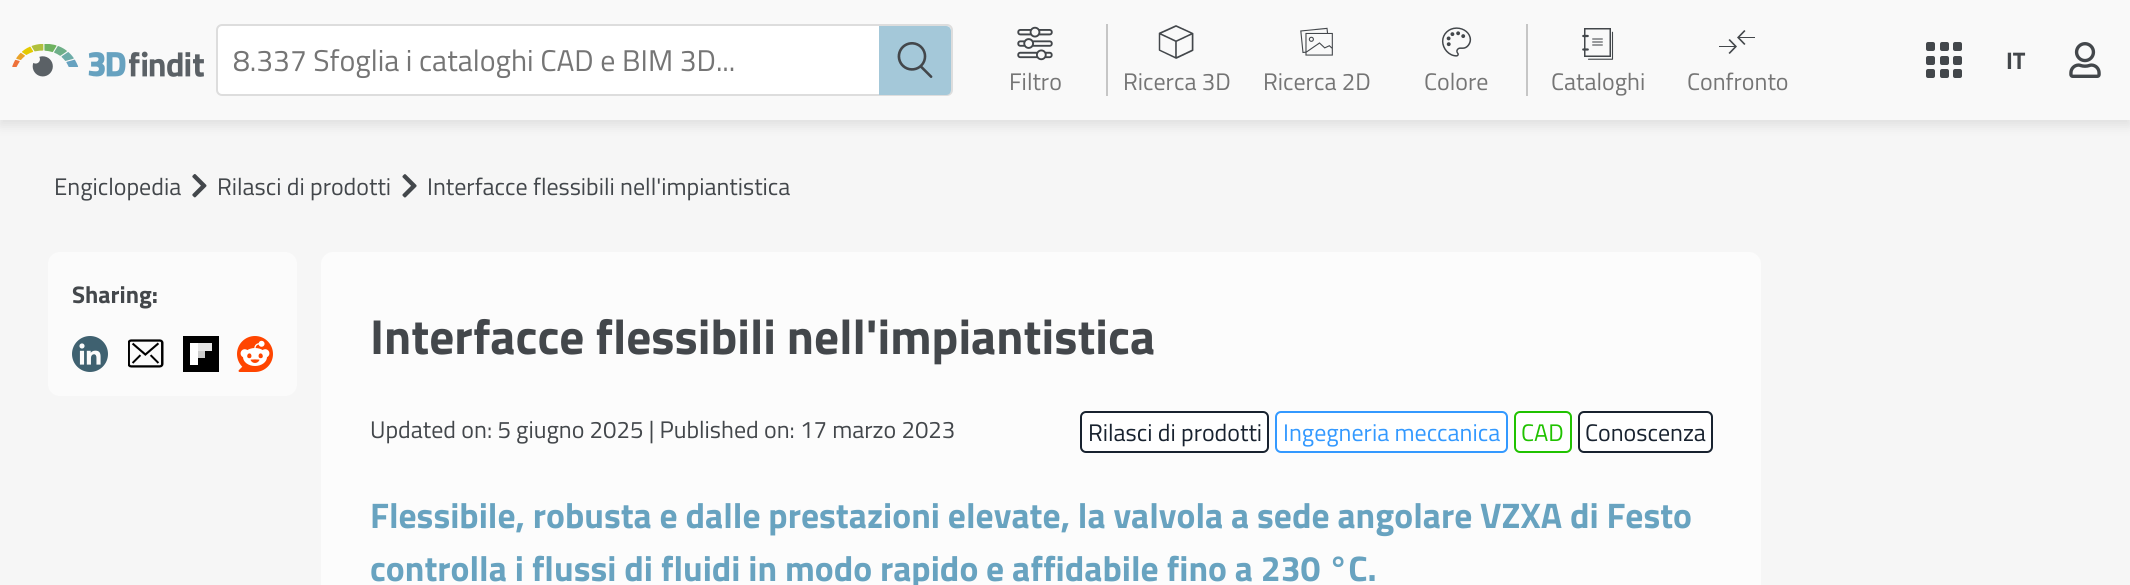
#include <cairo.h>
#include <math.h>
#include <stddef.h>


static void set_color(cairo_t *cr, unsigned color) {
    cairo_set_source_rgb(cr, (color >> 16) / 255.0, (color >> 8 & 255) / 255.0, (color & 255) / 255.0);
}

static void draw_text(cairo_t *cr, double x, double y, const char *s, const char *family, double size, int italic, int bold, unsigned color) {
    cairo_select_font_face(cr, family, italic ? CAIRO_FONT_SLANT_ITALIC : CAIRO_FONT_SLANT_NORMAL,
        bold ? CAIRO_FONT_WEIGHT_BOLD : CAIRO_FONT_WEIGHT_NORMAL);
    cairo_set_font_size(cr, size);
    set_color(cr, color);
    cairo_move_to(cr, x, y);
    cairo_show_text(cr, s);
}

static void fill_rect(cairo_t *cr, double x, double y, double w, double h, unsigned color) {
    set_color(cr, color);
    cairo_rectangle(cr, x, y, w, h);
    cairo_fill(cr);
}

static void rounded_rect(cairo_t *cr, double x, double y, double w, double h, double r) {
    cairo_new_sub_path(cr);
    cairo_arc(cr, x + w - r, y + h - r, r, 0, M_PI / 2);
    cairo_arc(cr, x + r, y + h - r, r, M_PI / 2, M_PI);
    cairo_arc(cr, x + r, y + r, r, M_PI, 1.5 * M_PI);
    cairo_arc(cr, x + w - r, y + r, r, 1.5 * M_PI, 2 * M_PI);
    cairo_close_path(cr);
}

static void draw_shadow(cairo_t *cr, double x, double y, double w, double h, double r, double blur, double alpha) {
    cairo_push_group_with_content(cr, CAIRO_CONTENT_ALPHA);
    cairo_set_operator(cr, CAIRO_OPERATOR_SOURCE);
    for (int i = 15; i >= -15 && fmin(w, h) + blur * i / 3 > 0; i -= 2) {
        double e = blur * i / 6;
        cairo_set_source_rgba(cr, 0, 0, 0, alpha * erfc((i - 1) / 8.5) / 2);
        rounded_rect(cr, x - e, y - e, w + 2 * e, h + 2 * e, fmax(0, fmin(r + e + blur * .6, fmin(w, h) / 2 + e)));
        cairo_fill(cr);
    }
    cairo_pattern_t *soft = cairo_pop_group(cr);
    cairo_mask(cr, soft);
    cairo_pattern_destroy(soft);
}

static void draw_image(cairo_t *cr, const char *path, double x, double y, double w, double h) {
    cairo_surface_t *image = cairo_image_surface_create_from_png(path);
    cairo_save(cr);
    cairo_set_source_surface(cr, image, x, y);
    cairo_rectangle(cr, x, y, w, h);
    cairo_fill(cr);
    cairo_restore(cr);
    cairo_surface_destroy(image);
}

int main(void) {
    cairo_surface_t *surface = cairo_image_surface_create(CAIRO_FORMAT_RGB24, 2130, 585);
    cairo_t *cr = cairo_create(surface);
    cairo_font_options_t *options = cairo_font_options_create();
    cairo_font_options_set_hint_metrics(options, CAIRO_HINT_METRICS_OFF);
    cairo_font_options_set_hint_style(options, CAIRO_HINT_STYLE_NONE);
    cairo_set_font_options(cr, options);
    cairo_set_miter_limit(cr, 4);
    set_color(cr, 0xF6F6F6);
    cairo_paint(cr);
    set_color(cr, 0x000000);
    draw_shadow(cr, 0, 5, 2130, 120, 0, 6, 0.1);
    fill_rect(cr, 0, 0, 2130, 120, 0xF9F9F9);
    draw_image(cr, "assets/img1.png", 12, 44, 192, 33);
    set_color(cr, 0xFFFFFF);
    rounded_rect(cr, 217, 25, 735, 70, 5);
    cairo_fill_preserve(cr);
    set_color(cr, 0xDDDDDD);
    cairo_stroke(cr);
    draw_text(cr, 233, 71, "8.337 Sfoglia i cataloghi CAD e BIM 3D...", "Titillium Web", 30, 0, 0, 0x757575);
    set_color(cr, 0xA4C8D9);
    cairo_new_path(cr);
    cairo_move_to(cr, 879, 26);
    cairo_line_to(cr, 946, 26);
    cairo_curve_to(cr, 949, 26, 951, 28, 951, 31);
    cairo_line_to(cr, 951, 90);
    cairo_curve_to(cr, 951, 93, 949, 95, 946, 95);
    cairo_line_to(cr, 879, 95);
    cairo_close_path(cr);
    cairo_fill(cr);
    draw_image(cr, "assets/img2.png", 897, 42, 36, 36);
    draw_image(cr, "assets/img3.png", 1926, 42, 36, 36);
    draw_text(cr, 2006, 69, "IT", "Titillium Web", 24, 0, 1, 0x43474B);
    draw_image(cr, "assets/img4.png", 2069, 42, 32, 36);
    draw_image(cr, "assets/img5.png", 1017, 26, 36, 35);
    draw_text(cr, 1009, 90, "Filtro", "Titillium Web", 24, 0, 0, 0x757575);
    fill_rect(cr, 1106, 24, 2, 72, 0xC6C6C6);
    draw_image(cr, "assets/img6.png", 1158, 25, 36, 34);
    draw_text(cr, 1123, 90, "Ricerca 3D", "Titillium Web", 24, 0, 0, 0x757575);
    draw_image(cr, "assets/img7.png", 1300, 27, 33, 29);
    draw_text(cr, 1263, 90, "Ricerca 2D", "Titillium Web", 24, 0, 0, 0x757575);
    draw_image(cr, "assets/img8.png", 1441, 27, 31, 30);
    draw_text(cr, 1424, 90, "Colore", "Titillium Web", 24, 0, 0, 0x757575);
    fill_rect(cr, 1526, 24, 2, 72, 0xC6C6C6);
    draw_image(cr, "assets/img9.png", 1582, 28, 32, 32);
    draw_text(cr, 1551, 90, "Cataloghi", "Titillium Web", 24, 0, 0, 0x757575);
    draw_image(cr, "assets/img10.png", 1719, 30, 36, 24);
    draw_text(cr, 1687, 90, "Confronto", "Titillium Web", 24, 0, 0, 0x757575);
    draw_text(cr, 54, 195, "Engiclopedia", "Titillium Web", 24, 0, 0, 0x43474B);
    draw_image(cr, "assets/img11.png", 192, 174, 15, 24);
    draw_text(cr, 217, 195, "Rilasci di prodotti", "Titillium Web", 24, 0, 0, 0x43474B);
    draw_image(cr, "assets/img12.png", 402, 174, 15, 24);
    draw_text(cr, 427, 195, "Interfacce flessibili nell'impiantistica", "Titillium Web", 24, 0, 0, 0x43474B);
    set_color(cr, 0xFBFBFB);
    rounded_rect(cr, 48, 252, 249, 144, 12);
    cairo_fill(cr);
    draw_text(cr, 72, 303, "Sharing:", "Titillium Web", 24, 0, 1, 0x43474B);
    draw_image(cr, "assets/img13.png", 72, 336, 36, 36);
    draw_image(cr, "assets/img14.png", 128, 339, 36, 29);
    fill_rect(cr, 183, 336, 36, 36, 0x000000);
    fill_rect(cr, 198, 351, 7, 7, 0xCCCCCC);
    fill_rect(cr, 198, 343, 14, 8, 0xE6E6E6);
    fill_rect(cr, 190, 343, 8, 22, 0xFFFFFF);
    draw_image(cr, "assets/img15.png", 237, 336, 36, 36);
    set_color(cr, 0xFCFCFC);
    cairo_new_path(cr);
    cairo_move_to(cr, 333, 252);
    cairo_line_to(cr, 1749, 252);
    cairo_curve_to(cr, 1755.5, 252, 1761, 257.5, 1761, 264);
    cairo_line_to(cr, 1761, 585);
    cairo_line_to(cr, 321, 585);
    cairo_line_to(cr, 321, 264);
    cairo_curve_to(cr, 321, 257.5, 326.5, 252, 333, 252);
    cairo_close_path(cr);
    cairo_fill(cr);
    draw_text(cr, 370, 354, "Interfacce flessibili nell'impiantistica", "Titillium Web", 49.25, 0, 1, 0x43474B);
    draw_text(cr, 370, 438, "Updated on: 5 giugno 2025 | Published on: 17 marzo 2023", "Titillium Web", 24, 0, 0, 0x43474B);
    set_color(cr, 0xFFFFFF);
    rounded_rect(cr, 1081, 412, 187, 40, 5);
    cairo_fill_preserve(cr);
    set_color(cr, 0x18222F);
    cairo_stroke(cr);
    draw_text(cr, 1088, 441, "Rilasci di prodotti", "Titillium Web", 24, 0, 0, 0x18222F);
    set_color(cr, 0xFFFFFF);
    rounded_rect(cr, 1276, 412, 231, 40, 5);
    cairo_fill_preserve(cr);
    set_color(cr, 0x3399FF);
    cairo_stroke(cr);
    draw_text(cr, 1283, 441, "Ingegneria meccanica", "Titillium Web", 24, 0, 0, 0x3399FF);
    set_color(cr, 0xFFFFFF);
    rounded_rect(cr, 1515, 412, 56, 40, 5);
    cairo_fill_preserve(cr);
    set_color(cr, 0x20C200);
    cairo_stroke(cr);
    draw_text(cr, 1521, 441, "CAD", "Titillium Web", 24, 0, 0, 0x20C200);
    set_color(cr, 0xFFFFFF);
    rounded_rect(cr, 1579, 412, 133, 40, 5);
    cairo_fill_preserve(cr);
    set_color(cr, 0x18222F);
    cairo_stroke(cr);
    draw_text(cr, 1585, 441, "Conoscenza", "Titillium Web", 24, 0, 0, 0x18222F);
    draw_text(cr, 370, 528, "Flessibile, robusta e dalle prestazioni elevate, la valvola a sede angolare VZXA di Festo", "Titillium Web", 35.55, 0, 1, 0x68A3C0);
    draw_text(cr, 370, 581, "controlla i flussi di fluidi in modo rapido e affidabile fino a 230 °C.", "Titillium Web", 35.55, 0, 1, 0x68A3C0);
    cairo_surface_write_to_png(surface, "output.png");
    cairo_font_options_destroy(options);
    cairo_destroy(cr);
    cairo_surface_destroy(surface);
    return 0;
}
